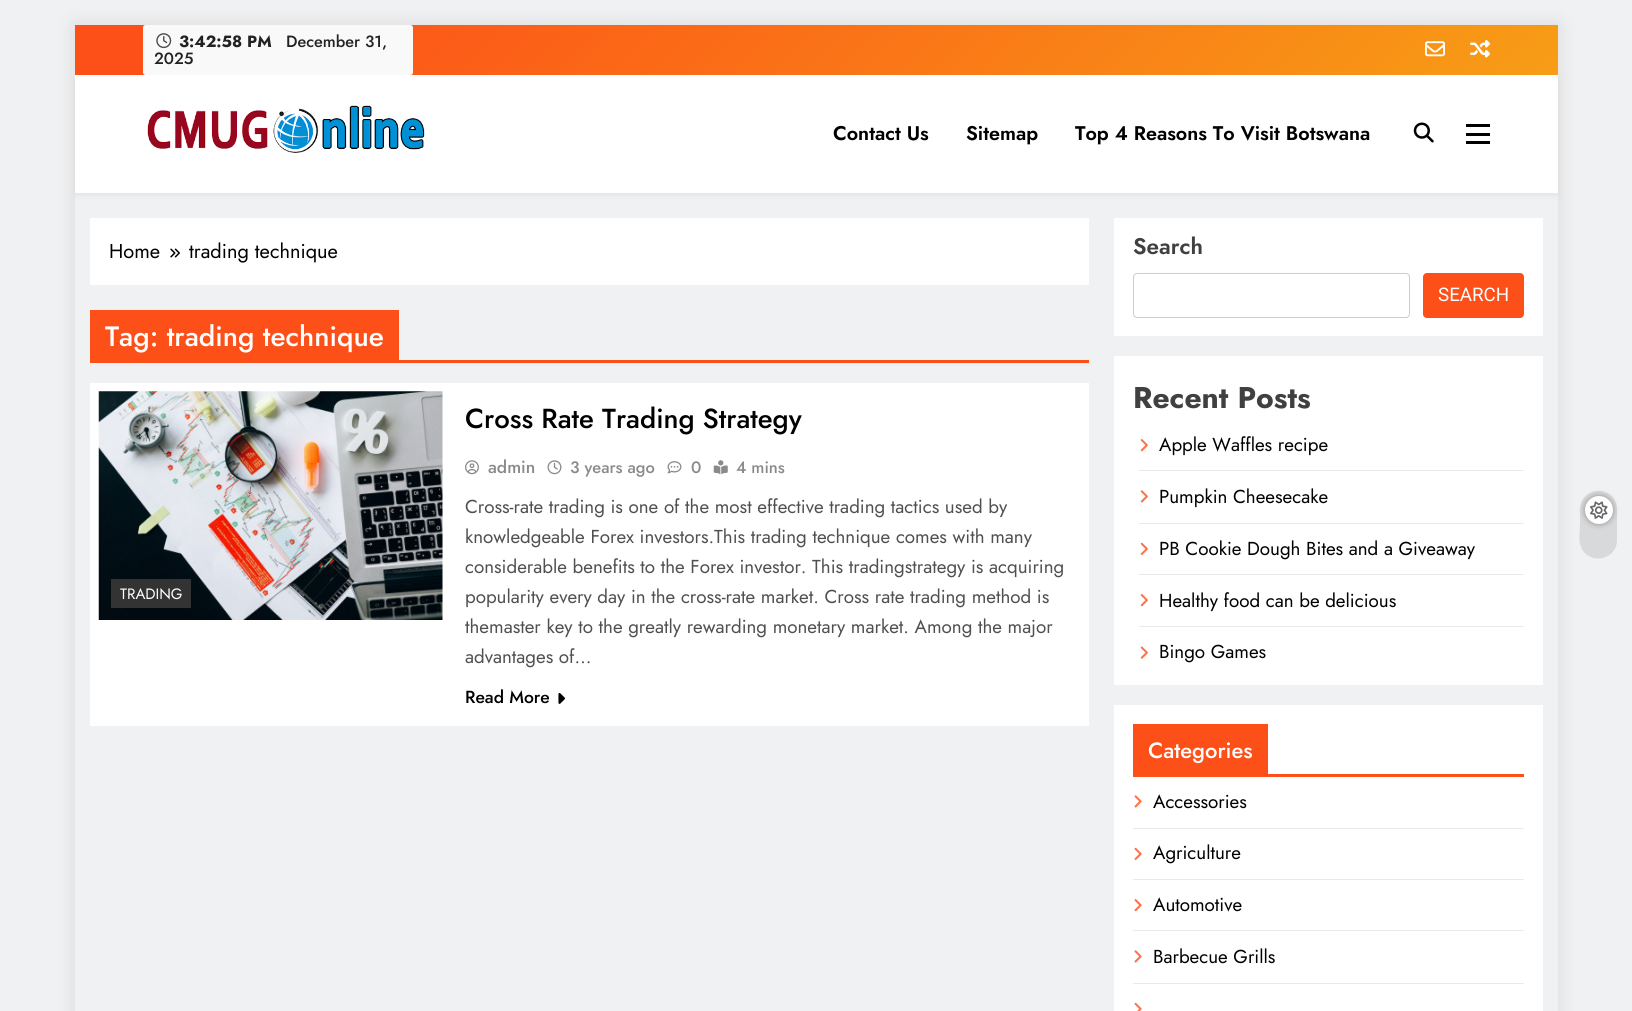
#include <cairo.h>
#include <math.h>
#include <stddef.h>


static void set_color(cairo_t *cr, unsigned color) {
    cairo_set_source_rgb(cr, (color >> 16) / 255.0, (color >> 8 & 255) / 255.0, (color & 255) / 255.0);
}

static void draw_text(cairo_t *cr, double x, double y, const char *s, const char *family, double size, int italic, int bold, unsigned color) {
    cairo_select_font_face(cr, family, italic ? CAIRO_FONT_SLANT_ITALIC : CAIRO_FONT_SLANT_NORMAL,
        bold ? CAIRO_FONT_WEIGHT_BOLD : CAIRO_FONT_WEIGHT_NORMAL);
    cairo_set_font_size(cr, size);
    set_color(cr, color);
    cairo_move_to(cr, x, y);
    cairo_show_text(cr, s);
}

static void fill_rect(cairo_t *cr, double x, double y, double w, double h, unsigned color) {
    set_color(cr, color);
    cairo_rectangle(cr, x, y, w, h);
    cairo_fill(cr);
}

static void rounded_rect(cairo_t *cr, double x, double y, double w, double h, double r) {
    cairo_new_sub_path(cr);
    cairo_arc(cr, x + w - r, y + h - r, r, 0, M_PI / 2);
    cairo_arc(cr, x + r, y + h - r, r, M_PI / 2, M_PI);
    cairo_arc(cr, x + r, y + r, r, M_PI, 1.5 * M_PI);
    cairo_arc(cr, x + w - r, y + r, r, 1.5 * M_PI, 2 * M_PI);
    cairo_close_path(cr);
}

static void draw_shadow(cairo_t *cr, double x, double y, double w, double h, double r, double blur, double alpha) {
    cairo_push_group_with_content(cr, CAIRO_CONTENT_ALPHA);
    cairo_set_operator(cr, CAIRO_OPERATOR_SOURCE);
    for (int i = 15; i >= -15 && fmin(w, h) + blur * i / 3 > 0; i -= 2) {
        double e = blur * i / 6;
        cairo_set_source_rgba(cr, 0, 0, 0, alpha * erfc((i - 1) / 8.5) / 2);
        rounded_rect(cr, x - e, y - e, w + 2 * e, h + 2 * e, fmax(0, fmin(r + e + blur * .6, fmin(w, h) / 2 + e)));
        cairo_fill(cr);
    }
    cairo_pattern_t *soft = cairo_pop_group(cr);
    cairo_mask(cr, soft);
    cairo_pattern_destroy(soft);
}

static void draw_image(cairo_t *cr, const char *path, double x, double y, double w, double h) {
    cairo_surface_t *image = cairo_image_surface_create_from_png(path);
    cairo_save(cr);
    cairo_set_source_surface(cr, image, x, y);
    cairo_rectangle(cr, x, y, w, h);
    cairo_fill(cr);
    cairo_restore(cr);
    cairo_surface_destroy(image);
}

int main(void) {
    cairo_surface_t *surface = cairo_image_surface_create(CAIRO_FORMAT_RGB24, 1632, 1011);
    cairo_t *cr = cairo_create(surface);
    cairo_font_options_t *options = cairo_font_options_create();
    cairo_font_options_set_hint_metrics(options, CAIRO_HINT_METRICS_OFF);
    cairo_font_options_set_hint_style(options, CAIRO_HINT_STYLE_NONE);
    cairo_set_font_options(cr, options);
    cairo_set_miter_limit(cr, 4);
    cairo_pattern_t *gradient;
    set_color(cr, 0xF0F1F2);
    cairo_paint(cr);
    cairo_save(cr);
    cairo_set_fill_rule(cr, CAIRO_FILL_RULE_EVEN_ODD);
    cairo_new_path(cr);
    cairo_move_to(cr, 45, 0);
    cairo_line_to(cr, 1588, 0);
    cairo_line_to(cr, 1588, 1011);
    cairo_line_to(cr, 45, 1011);
    cairo_close_path(cr);
    cairo_move_to(cr, 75, 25);
    cairo_line_to(cr, 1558, 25);
    cairo_line_to(cr, 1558, 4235);
    cairo_line_to(cr, 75, 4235);
    cairo_close_path(cr);
    cairo_clip(cr);
    set_color(cr, 0x000000);
    draw_shadow(cr, 75, 25, 1483, 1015, 0, 9.5, 0.1);
    cairo_restore(cr);
    gradient = cairo_pattern_create_linear(433, -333, 1199, 433);
    cairo_pattern_add_color_stop_rgba(gradient, 0.1, 0.992, 0.31, 0.094, 1);
    cairo_pattern_add_color_stop_rgba(gradient, 1, 0.969, 0.616, 0.086, 1);
    cairo_set_source(cr, gradient);
    cairo_pattern_destroy(gradient);
    cairo_rectangle(cr, 75, 25, 1483, 50);
    cairo_fill(cr);
    set_color(cr, 0x000000);
    draw_shadow(cr, 75, 79, 1483, 117, 0, 2.5, 0.05);
    set_color(cr, 0xF9F9F9);
    rounded_rect(cr, 143, 25, 270, 50, 2.5);
    cairo_fill(cr);
    draw_image(cr, "assets/img1.png", 156, 33, 16, 16);
    draw_text(cr, 179, 47, "3:42:58 PM", "Jost", 16.25, 0, 1, 0x222222);
    draw_text(cr, 286, 47, "December 31,", "Jost Medium", 16.25, 0, 0, 0x222222);
    draw_text(cr, 154, 64, "2025", "Jost Medium", 16.25, 0, 0, 0x222222);
    draw_image(cr, "assets/img2.png", 1425, 41, 20, 16);
    draw_image(cr, "assets/img3.png", 1470, 40, 20, 18);
    fill_rect(cr, 75, 75, 1483, 118, 0xFFFFFF);
    draw_image(cr, "assets/img4.png", 147, 105, 278, 48);
    draw_text(cr, 833, 140, "Contact Us", "Jost SemiBold", 19.75, 0, 0, 0x000000);
    draw_text(cr, 966, 140, "Sitemap", "Jost SemiBold", 19.75, 0, 0, 0x000000);
    draw_text(cr, 1075, 140, "Top 4 Reasons To Visit Botswana", "Jost SemiBold", 19.75, 0, 0, 0x000000);
    draw_image(cr, "assets/img5.png", 1413, 122, 21, 21);
    fill_rect(cr, 1466, 124, 24, 3, 0x000000);
    fill_rect(cr, 1466, 133, 24, 3, 0x000000);
    fill_rect(cr, 1466, 141, 24, 3, 0x000000);
    set_color(cr, 0xD8D9DA);
    cairo_new_path(cr);
    cairo_move_to(cr, 1617, 510);
    cairo_line_to(cr, 1617, 540);
    cairo_curve_to(cr, 1617, 560, 1589, 566, 1581, 547);
    cairo_curve_to(cr, 1578, 540, 1580, 532, 1580, 525);
    cairo_line_to(cr, 1580, 510);
    cairo_curve_to(cr, 1581, 484, 1617, 485, 1617, 510);
    cairo_close_path(cr);
    cairo_fill(cr);
    set_color(cr, 0x000000);
    draw_shadow(cr, 1585, 496, 28, 28, 14, 3, 0.35);
    set_color(cr, 0xFFFFFF);
    cairo_arc(cr, 1599, 510, 14, 0, 2 * M_PI);
    cairo_fill(cr);
    draw_image(cr, "assets/img6.png", 1590, 501, 18, 18);
    fill_rect(cr, 90, 218, 999, 67, 0xFFFFFF);
    draw_text(cr, 109, 258, "Home", "Jost", 20, 0, 0, 0x000000);
    draw_image(cr, "assets/img7.png", 170, 248, 10, 10);
    draw_text(cr, 189, 258, "trading technique", "Jost", 20, 0, 0, 0x000000);
    fill_rect(cr, 399, 360, 690, 3, 0xFD4F18);
    fill_rect(cr, 90, 310, 309, 53, 0xFD4F18);
    draw_text(cr, 105, 346, "Tag: trading technique", "Jost Medium", 28, 0, 0, 0xFFFFFF);
    fill_rect(cr, 90, 383, 999, 343, 0xFFFFFF);
    draw_image(cr, "assets/img8.png", 98, 391, 345, 229);
    fill_rect(cr, 111, 579, 80, 29, 0x333333);
    draw_text(cr, 120, 599, "TRADING", "Jost", 15, 0, 0, 0xFFFFFF);
    draw_text(cr, 465, 428, "Cross Rate Trading Strategy", "Jost Medium", 27.5, 0, 0, 0x000000);
    draw_image(cr, "assets/img9.png", 465, 460, 14, 15);
    draw_text(cr, 488, 473, "admin", "Jost Medium", 17.5, 0, 0, 0x8A8A8C);
    draw_image(cr, "assets/img10.png", 547, 460, 15, 15);
    draw_text(cr, 570, 473, "3 years ago", "Jost Medium", 16.5, 0, 0, 0x8A8A8C);
    draw_image(cr, "assets/img11.png", 667, 461, 15, 13);
    draw_text(cr, 691, 473, "0", "Jost Medium", 16.5, 0, 0, 0x8A8A8C);
    draw_image(cr, "assets/img12.png", 713, 460, 15, 15);
    draw_text(cr, 736, 473, "4 mins", "Jost Medium", 16.5, 0, 0, 0x8A8A8C);
    draw_text(cr, 465, 513, "Cross-rate trading is one of the most effective trading tactics used by", "Jost", 18.75, 0, 0, 0x505050);
    draw_text(cr, 465, 543, "knowledgeable Forex investors.This trading technique comes with many", "Jost", 18.75, 0, 0, 0x505050);
    draw_text(cr, 465, 573, "considerable benefits to the Forex investor. This tradingstrategy is acquiring", "Jost", 18.75, 0, 0, 0x505050);
    draw_text(cr, 465, 603, "popularity every day in the cross-rate market. Cross rate trading method is", "Jost", 18.75, 0, 0, 0x505050);
    draw_text(cr, 465, 633, "themaster key to the greatly rewarding monetary market. Among the major", "Jost", 18.75, 0, 0, 0x505050);
    draw_text(cr, 465, 663, "advantages of…", "Jost", 18.75, 0, 0, 0x505050);
    draw_text(cr, 465, 703, "Read More", "Jost Medium", 17.5, 0, 0, 0x000000);
    draw_image(cr, "assets/img13.png", 558, 693, 7, 11);
    fill_rect(cr, 1114, 218, 429, 118, 0xFFFFFF);
    draw_text(cr, 1133, 254, "Search", "Jost SemiBold", 22.5, 0, 0, 0x404040);
    rounded_rect(cr, 1133.5, 273.5, 276, 44, 3.5);
    set_color(cr, 0xCCCCCC);
    cairo_set_line_width(cr, 1);
    cairo_stroke(cr);
    set_color(cr, 0xFD4F18);
    rounded_rect(cr, 1423, 273, 101, 45, 4);
    cairo_fill(cr);
    draw_text(cr, 1438, 301, "SEARCH", "Roboto", 18.75, 0, 0, 0xFFFFFF);
    fill_rect(cr, 1114, 356, 429, 329, 0xFFFFFF);
    draw_text(cr, 1133, 408, "Recent Posts", "Jost", 30, 0, 1, 0x404040);
    fill_rect(cr, 1139, 470, 385, 1, 0xEAEAEA);
    draw_image(cr, "assets/img14.png", 1140, 439, 8, 13);
    draw_text(cr, 1159, 451, "Apple Waffles recipe", "Jost", 18.75, 0, 0, 0x000000);
    fill_rect(cr, 1139, 523, 385, 1, 0xEAEAEA);
    draw_image(cr, "assets/img15.png", 1140, 490, 8, 13);
    draw_text(cr, 1159, 503, "Pumpkin Cheesecake", "Jost", 18.75, 0, 0, 0x000000);
    fill_rect(cr, 1139, 574, 385, 1, 0xEAEAEA);
    draw_image(cr, "assets/img16.png", 1140, 542, 8, 13);
    draw_text(cr, 1159, 555, "PB Cookie Dough Bites and a Giveaway", "Jost", 18.75, 0, 0, 0x000000);
    fill_rect(cr, 1139, 626, 385, 1, 0xEAEAEA);
    draw_image(cr, "assets/img14.png", 1140, 594, 8, 13);
    draw_text(cr, 1159, 607, "Healthy food can be delicious", "Jost", 18.75, 0, 0, 0x000000);
    draw_image(cr, "assets/img17.png", 1140, 646, 8, 13);
    draw_text(cr, 1159, 658, "Bingo Games", "Jost", 18.75, 0, 0, 0x000000);
    fill_rect(cr, 1114, 705, 429, 306, 0xFFFFFF);
    fill_rect(cr, 1133, 774, 391, 3, 0xFD4F18);
    fill_rect(cr, 1133, 724, 135, 50, 0xFD4F18);
    draw_text(cr, 1148, 758, "Categories", "Jost Medium", 22, 0, 0, 0xFFFFFF);
    fill_rect(cr, 1133, 828, 391, 1, 0xEAEAEA);
    draw_image(cr, "assets/img18.png", 1134, 795, 8, 13);
    draw_text(cr, 1153, 808, "Accessories", "Jost", 18.75, 0, 0, 0x000000);
    fill_rect(cr, 1133, 879, 391, 1, 0xEAEAEA);
    draw_image(cr, "assets/img19.png", 1134, 847, 8, 13);
    draw_text(cr, 1153, 859, "Agriculture", "Jost", 18.75, 0, 0, 0x000000);
    fill_rect(cr, 1133, 930, 391, 1, 0xEAEAEA);
    draw_image(cr, "assets/img20.png", 1134, 899, 8, 13);
    draw_text(cr, 1153, 911, "Automotive", "Jost", 18.75, 0, 0, 0x000000);
    fill_rect(cr, 1133, 983, 391, 1, 0xEAEAEA);
    draw_image(cr, "assets/img18.png", 1134, 950, 8, 13);
    draw_text(cr, 1153, 963, "Barbecue Grills", "Jost", 18.75, 0, 0, 0x000000);
    draw_image(cr, "assets/img21.png", 1134, 1002, 8, 9);
    cairo_surface_write_to_png(surface, "output.png");
    cairo_font_options_destroy(options);
    cairo_destroy(cr);
    cairo_surface_destroy(surface);
    return 0;
}
